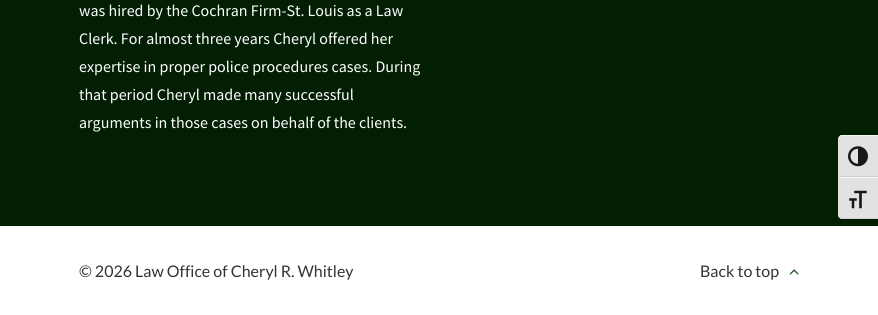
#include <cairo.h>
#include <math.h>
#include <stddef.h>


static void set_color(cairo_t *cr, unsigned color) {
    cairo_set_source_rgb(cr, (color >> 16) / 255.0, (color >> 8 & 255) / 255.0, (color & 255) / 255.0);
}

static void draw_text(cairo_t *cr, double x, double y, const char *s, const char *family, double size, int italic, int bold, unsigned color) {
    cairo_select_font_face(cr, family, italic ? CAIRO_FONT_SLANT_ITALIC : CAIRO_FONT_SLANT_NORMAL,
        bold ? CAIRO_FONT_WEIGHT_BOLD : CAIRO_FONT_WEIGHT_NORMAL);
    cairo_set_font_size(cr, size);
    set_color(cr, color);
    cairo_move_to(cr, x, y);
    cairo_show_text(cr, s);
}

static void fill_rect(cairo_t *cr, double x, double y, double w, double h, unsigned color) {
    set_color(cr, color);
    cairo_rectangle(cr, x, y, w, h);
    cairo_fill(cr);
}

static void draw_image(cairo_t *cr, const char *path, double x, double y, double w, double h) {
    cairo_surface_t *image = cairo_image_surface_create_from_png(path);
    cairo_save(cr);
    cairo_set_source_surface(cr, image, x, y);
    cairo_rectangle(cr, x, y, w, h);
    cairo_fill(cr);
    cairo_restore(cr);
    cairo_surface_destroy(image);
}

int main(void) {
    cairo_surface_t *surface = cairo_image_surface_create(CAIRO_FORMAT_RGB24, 878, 315);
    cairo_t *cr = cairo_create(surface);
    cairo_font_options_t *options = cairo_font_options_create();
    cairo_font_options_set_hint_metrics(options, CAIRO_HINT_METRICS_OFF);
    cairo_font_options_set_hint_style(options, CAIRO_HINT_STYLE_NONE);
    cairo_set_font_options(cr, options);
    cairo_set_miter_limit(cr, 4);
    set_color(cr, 0xFFFFFF);
    cairo_paint(cr);
    fill_rect(cr, 0, 0, 878, 226, 0x021F03);
    draw_text(cr, 79, 16, "was hired by the Cochran Firm-St. Louis as a Law", "Source Sans Pro", 16, 0, 0, 0xFFFFFF);
    draw_text(cr, 79, 44, "Clerk. For almost three years Cheryl offered her", "Source Sans Pro", 16, 0, 0, 0xFFFFFF);
    draw_text(cr, 79, 72, "expertise in proper police procedures cases. During", "Source Sans Pro", 16, 0, 0, 0xFFFFFF);
    draw_text(cr, 79, 100, "that period Cheryl made many successful", "Source Sans Pro", 16, 0, 0, 0xFFFFFF);
    draw_text(cr, 79, 128, "arguments in those cases on behalf of the clients.", "Source Sans Pro", 16, 0, 0, 0xFFFFFF);
    draw_text(cr, 79, 277, "© 2026 Law Office of Cheryl R. Whitley", "Lato", 16, 0, 0, 0x333333);
    draw_text(cr, 700, 277, "Back to top", "Lato", 16, 0, 0, 0x333333);
    draw_image(cr, "assets/img1.png", 789, 269, 10, 6);
    set_color(cr, 0xE2E2E2);
    cairo_new_path(cr);
    cairo_move_to(cr, 842, 135);
    cairo_line_to(cr, 878, 135);
    cairo_line_to(cr, 878, 177);
    cairo_line_to(cr, 838, 177);
    cairo_line_to(cr, 838, 139);
    cairo_curve_to(cr, 838, 137, 840, 135, 842, 135);
    cairo_close_path(cr);
    cairo_fill(cr);
    set_color(cr, 0xF5F5F5);
    cairo_new_path(cr);
    cairo_move_to(cr, 842, 136);
    cairo_line_to(cr, 878, 136);
    cairo_line_to(cr, 878, 135);
    cairo_line_to(cr, 842, 135);
    cairo_curve_to(cr, 840, 135, 838, 137, 838, 139);
    cairo_curve_to(cr, 838, 137, 840, 136, 842, 136);
    cairo_close_path(cr);
    cairo_fill(cr);
    fill_rect(cr, 838, 176, 40, 1, 0xD2D2D2);
    draw_image(cr, "assets/img2.png", 848, 146, 20, 21);
    set_color(cr, 0xE2E2E2);
    cairo_new_path(cr);
    cairo_move_to(cr, 838, 177);
    cairo_line_to(cr, 878, 177);
    cairo_line_to(cr, 878, 219);
    cairo_line_to(cr, 842, 219);
    cairo_curve_to(cr, 840, 219, 838, 217, 838, 215);
    cairo_close_path(cr);
    cairo_fill(cr);
    fill_rect(cr, 838, 177, 40, 1, 0xF5F5F5);
    set_color(cr, 0xD2D2D2);
    cairo_new_path(cr);
    cairo_move_to(cr, 878, 219);
    cairo_line_to(cr, 878, 218);
    cairo_line_to(cr, 842, 218);
    cairo_curve_to(cr, 840, 218, 838, 217, 838, 215);
    cairo_curve_to(cr, 838, 217, 840, 219, 842, 219);
    cairo_close_path(cr);
    cairo_fill(cr);
    draw_image(cr, "assets/img3.png", 849, 190, 18, 19);
    cairo_surface_write_to_png(surface, "output.png");
    cairo_font_options_destroy(options);
    cairo_destroy(cr);
    cairo_surface_destroy(surface);
    return 0;
}
